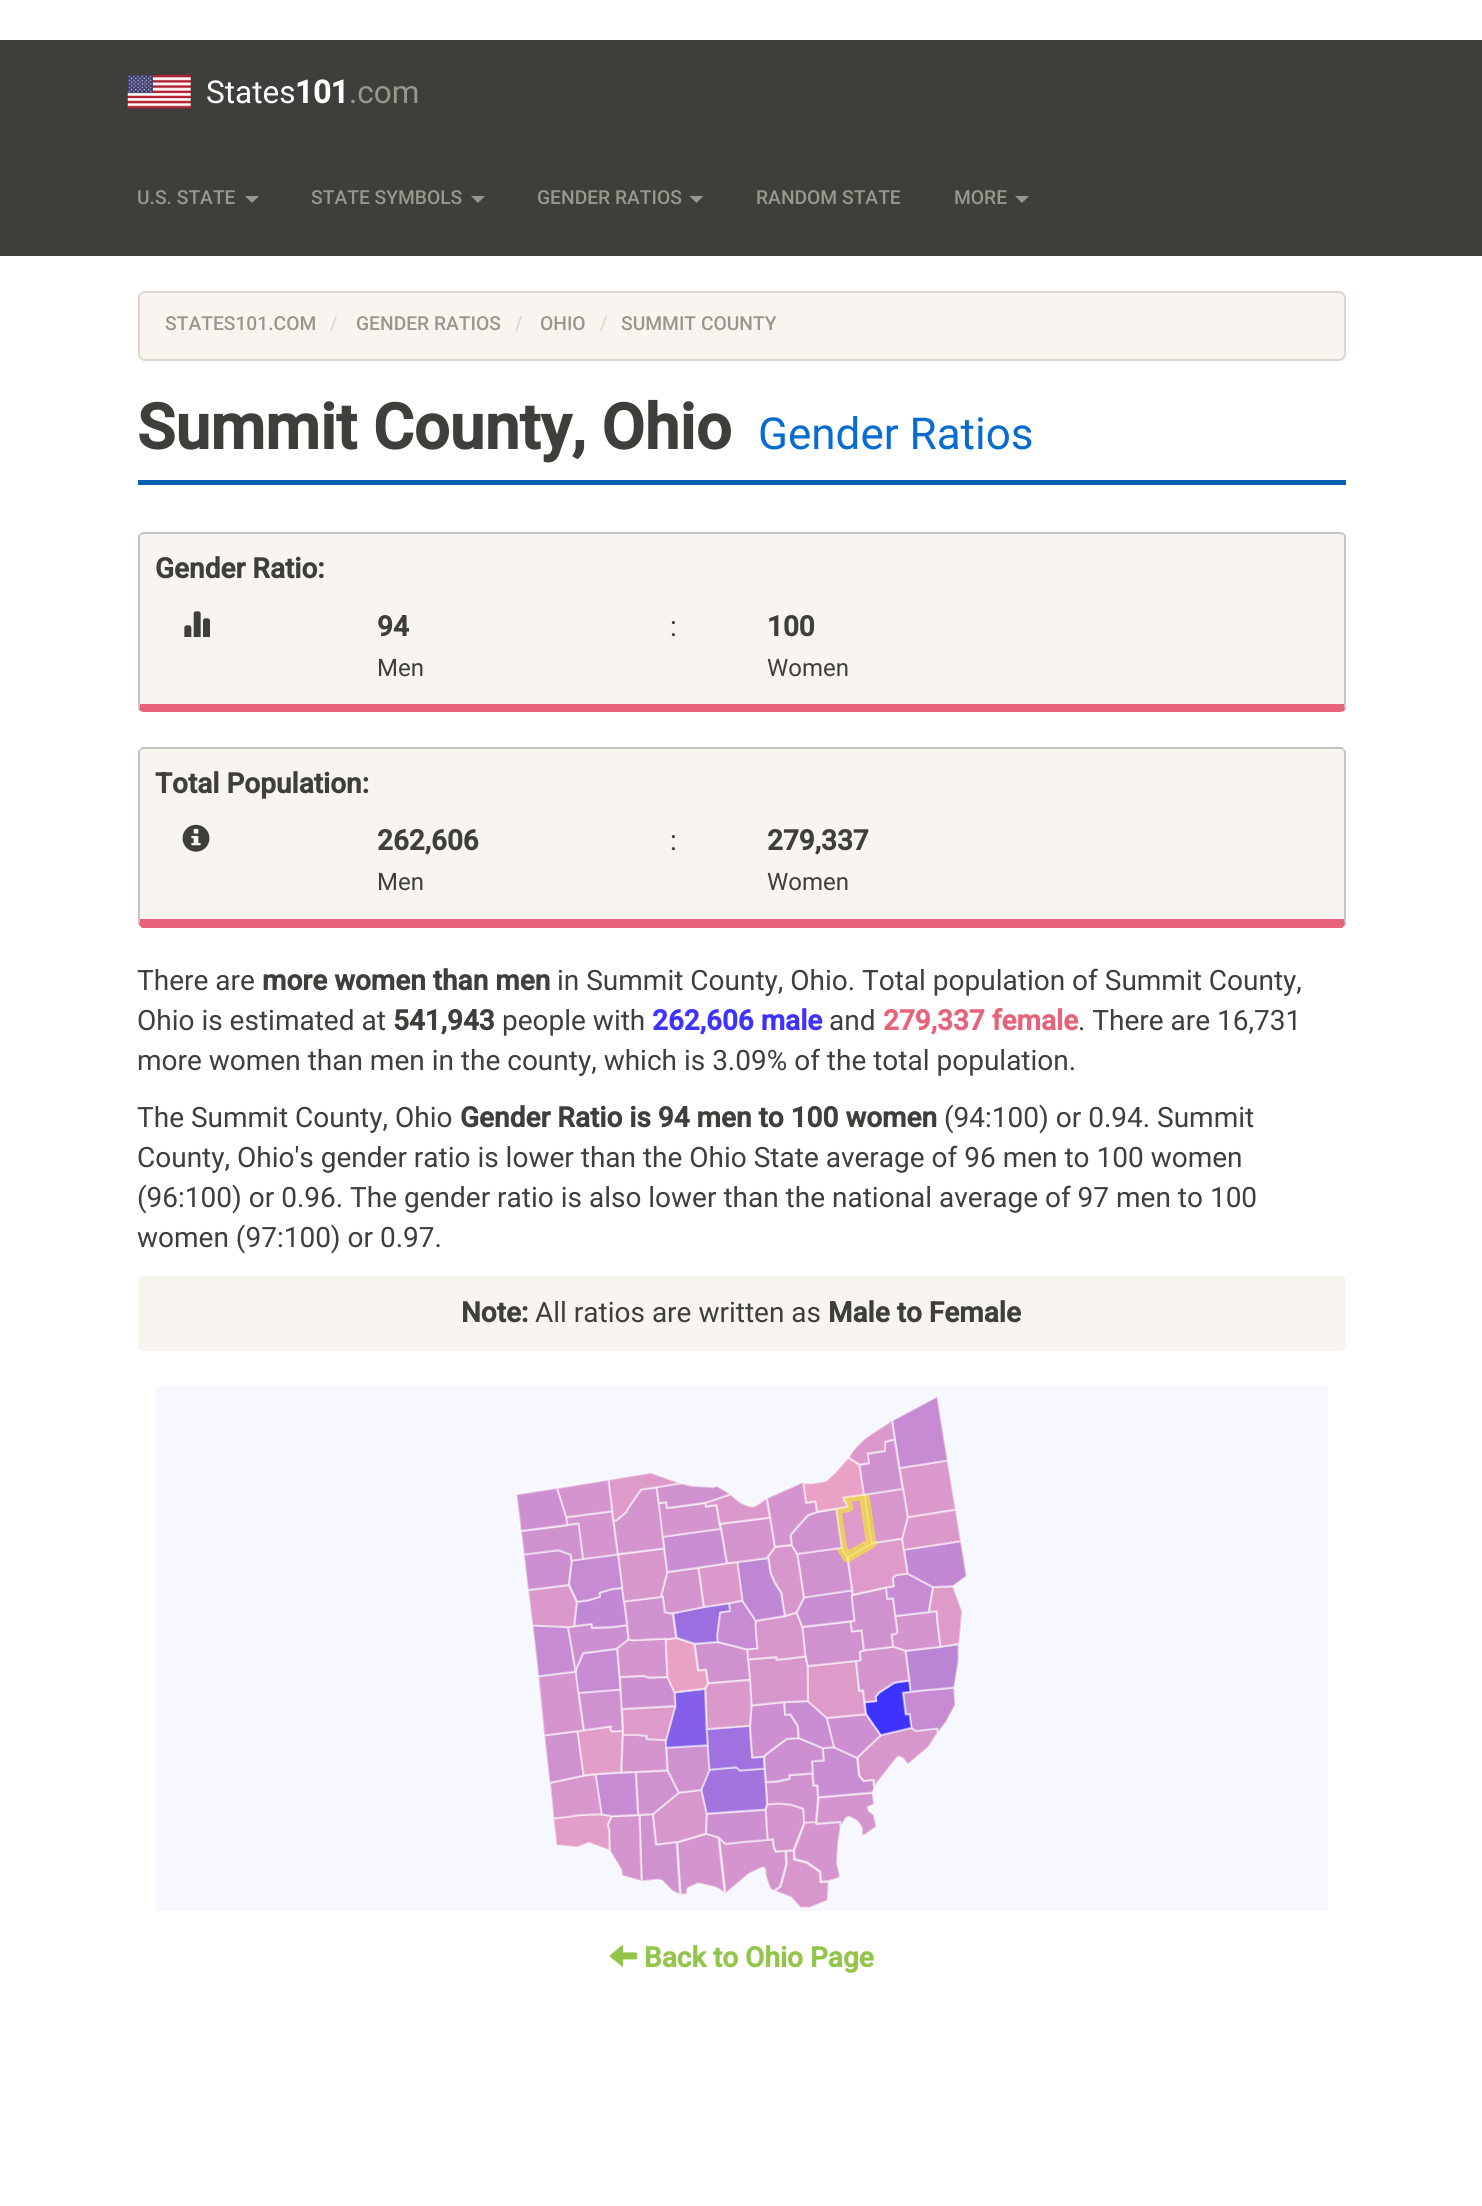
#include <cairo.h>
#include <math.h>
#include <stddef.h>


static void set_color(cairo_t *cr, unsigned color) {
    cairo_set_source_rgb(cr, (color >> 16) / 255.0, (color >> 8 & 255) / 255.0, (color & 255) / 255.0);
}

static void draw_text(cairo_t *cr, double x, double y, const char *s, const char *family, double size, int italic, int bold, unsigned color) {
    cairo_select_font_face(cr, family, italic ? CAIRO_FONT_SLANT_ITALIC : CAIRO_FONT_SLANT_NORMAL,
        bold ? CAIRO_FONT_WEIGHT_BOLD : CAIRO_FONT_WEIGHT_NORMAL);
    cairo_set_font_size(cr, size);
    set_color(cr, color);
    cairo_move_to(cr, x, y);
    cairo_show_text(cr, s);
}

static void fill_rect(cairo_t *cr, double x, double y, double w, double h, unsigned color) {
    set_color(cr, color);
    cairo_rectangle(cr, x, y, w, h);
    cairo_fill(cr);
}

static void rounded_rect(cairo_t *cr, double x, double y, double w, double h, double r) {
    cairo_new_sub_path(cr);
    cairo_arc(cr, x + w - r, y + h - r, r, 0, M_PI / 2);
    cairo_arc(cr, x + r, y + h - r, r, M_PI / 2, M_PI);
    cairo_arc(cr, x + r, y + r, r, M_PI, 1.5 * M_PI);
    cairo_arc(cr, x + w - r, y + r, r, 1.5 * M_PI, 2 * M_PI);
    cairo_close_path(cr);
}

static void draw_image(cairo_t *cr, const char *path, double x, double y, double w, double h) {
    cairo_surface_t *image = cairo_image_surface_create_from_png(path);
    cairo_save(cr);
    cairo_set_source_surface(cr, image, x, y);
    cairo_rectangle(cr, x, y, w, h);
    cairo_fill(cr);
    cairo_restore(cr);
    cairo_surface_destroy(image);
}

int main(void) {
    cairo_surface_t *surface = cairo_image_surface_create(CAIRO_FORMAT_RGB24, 1482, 2206);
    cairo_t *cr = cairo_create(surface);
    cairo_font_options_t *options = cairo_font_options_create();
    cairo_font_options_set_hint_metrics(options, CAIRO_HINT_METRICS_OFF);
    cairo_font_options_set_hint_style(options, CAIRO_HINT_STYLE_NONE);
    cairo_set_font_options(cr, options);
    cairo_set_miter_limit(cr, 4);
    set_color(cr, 0xFFFFFF);
    cairo_paint(cr);
    fill_rect(cr, 0, 40, 1482, 216, 0x3E3F3A);
    draw_image(cr, "assets/img1.png", 127, 74, 64, 35);
    draw_text(cr, 206, 103, "States", "Roboto", 31.5, 0, 0, 0xFFFFFF);
    draw_text(cr, 295, 103, "101", "Roboto", 31.5, 0, 1, 0xFFFFFF);
    draw_text(cr, 349, 103, ".com", "Roboto", 31.5, 0, 0, 0x98978B);
    draw_text(cr, 137, 204, "U.S. STATE", "Roboto Medium", 19.25, 0, 0, 0x98978B);
    cairo_new_path(cr);
    cairo_move_to(cr, 245, 196);
    cairo_line_to(cr, 259, 196);
    cairo_line_to(cr, 252, 203);
    cairo_close_path(cr);
    cairo_fill(cr);
    draw_text(cr, 311, 204, "STATE SYMBOLS", "Roboto Medium", 19.25, 0, 0, 0x98978B);
    cairo_new_path(cr);
    cairo_move_to(cr, 471, 196);
    cairo_line_to(cr, 485, 196);
    cairo_line_to(cr, 478, 203);
    cairo_close_path(cr);
    cairo_fill(cr);
    draw_text(cr, 537, 204, "GENDER RATIOS", "Roboto Medium", 19.25, 0, 0, 0x98978B);
    cairo_new_path(cr);
    cairo_move_to(cr, 689.5, 196);
    cairo_line_to(cr, 703.5, 196);
    cairo_line_to(cr, 696.5, 203);
    cairo_close_path(cr);
    cairo_fill(cr);
    draw_text(cr, 756, 204, "RANDOM STATE", "Roboto Medium", 19.25, 0, 0, 0x98978B);
    draw_text(cr, 954, 204, "MORE", "Roboto Medium", 19.25, 0, 0, 0x98978B);
    cairo_new_path(cr);
    cairo_move_to(cr, 1015, 196);
    cairo_line_to(cr, 1029, 196);
    cairo_line_to(cr, 1022, 203);
    cairo_close_path(cr);
    cairo_fill(cr);
    set_color(cr, 0xF8F5F0);
    rounded_rect(cr, 139, 292, 1206, 68, 6);
    cairo_fill_preserve(cr);
    set_color(cr, 0xDFD7CA);
    cairo_stroke(cr);
    draw_text(cr, 165, 330, "STATES101.COM", "Roboto Medium", 19.25, 0, 0, 0x98978B);
    draw_text(cr, 330, 330, "/", "Roboto Medium", 19.25, 0, 0, 0xDFD7CA);
    draw_text(cr, 356, 330, "GENDER RATIOS", "Roboto Medium", 19.25, 0, 0, 0x98978B);
    draw_text(cr, 515, 330, "/", "Roboto Medium", 19.25, 0, 0, 0xDFD7CA);
    draw_text(cr, 540, 330, "OHIO", "Roboto Medium", 19.25, 0, 0, 0x98978B);
    draw_text(cr, 600, 330, "/", "Roboto Medium", 19.25, 0, 0, 0xDFD7CA);
    draw_text(cr, 621, 330, "SUMMIT COUNTY", "Roboto Medium", 19.25, 0, 0, 0x98978B);
    fill_rect(cr, 138, 480, 1208, 5, 0x075EB5);
    draw_text(cr, 137, 449, "Summit County, Ohio", "Roboto", 63, 0, 1, 0x3E3F3A);
    draw_text(cr, 758, 449, "Gender Ratios", "Roboto", 44, 0, 0, 0x086BCE);
    set_color(cr, 0xF8F5F0);
    cairo_new_path(cr);
    cairo_move_to(cr, 144, 534);
    cairo_line_to(cr, 1340, 534);
    cairo_curve_to(cr, 1342, 534, 1344, 535, 1344, 537);
    cairo_line_to(cr, 1344, 704);
    cairo_line_to(cr, 140, 704);
    cairo_line_to(cr, 140, 537);
    cairo_curve_to(cr, 140, 535, 142, 534, 144, 534);
    cairo_close_path(cr);
    cairo_fill(cr);
    set_color(cr, 0xC5C5C5);
    cairo_new_path(cr);
    cairo_move_to(cr, 144, 532);
    cairo_curve_to(cr, 142, 532, 141, 533, 140, 533);
    cairo_line_to(cr, 141, 535);
    cairo_line_to(cr, 144, 534);
    cairo_line_to(cr, 1340, 534);
    cairo_line_to(cr, 1343, 535);
    cairo_line_to(cr, 1344, 533);
    cairo_curve_to(cr, 1343, 533, 1342, 532, 1340, 532);
    cairo_close_path(cr);
    cairo_fill(cr);
    cairo_new_path(cr);
    cairo_move_to(cr, 1346, 708);
    cairo_line_to(cr, 1345, 710);
    cairo_line_to(cr, 1344, 704);
    cairo_line_to(cr, 1344, 537);
    cairo_curve_to(cr, 1344, 536, 1344, 535, 1343, 535);
    cairo_line_to(cr, 1344, 533);
    cairo_line_to(cr, 1346, 536);
    cairo_close_path(cr);
    cairo_fill(cr);
    set_color(cr, 0xE6637A);
    cairo_new_path(cr);
    cairo_move_to(cr, 1345, 710);
    cairo_curve_to(cr, 1344, 711, 1342, 712, 1340, 712);
    cairo_line_to(cr, 144, 712);
    cairo_curve_to(cr, 142, 712, 140, 711, 139, 710);
    cairo_line_to(cr, 140, 704);
    cairo_line_to(cr, 1344, 704);
    cairo_close_path(cr);
    cairo_fill(cr);
    set_color(cr, 0xC5C5C5);
    cairo_new_path(cr);
    cairo_move_to(cr, 138, 536);
    cairo_line_to(cr, 140, 533);
    cairo_line_to(cr, 141, 535);
    cairo_curve_to(cr, 140, 535, 140, 536, 140, 537);
    cairo_line_to(cr, 140, 704);
    cairo_line_to(cr, 139, 710);
    cairo_line_to(cr, 138, 708);
    cairo_close_path(cr);
    cairo_fill(cr);
    draw_text(cr, 155, 578, "Gender Ratio:", "Roboto", 28, 0, 1, 0x3E3F3A);
    draw_image(cr, "assets/img2.png", 184, 611, 26, 26);
    draw_text(cr, 377, 636, "94", "Roboto", 28, 0, 1, 0x3E3F3A);
    draw_text(cr, 377, 676, "Men", "Roboto", 24, 0, 0, 0x3E3F3A);
    draw_text(cr, 670, 636, ":", "Roboto", 28, 0, 0, 0x3E3F3A);
    draw_text(cr, 767, 636, "100", "Roboto", 28, 0, 1, 0x3E3F3A);
    draw_text(cr, 767, 676, "Women", "Roboto", 24, 0, 0, 0x3E3F3A);
    set_color(cr, 0xF8F5F0);
    cairo_new_path(cr);
    cairo_move_to(cr, 144, 749);
    cairo_line_to(cr, 1340, 749);
    cairo_curve_to(cr, 1342, 749, 1344, 751, 1344, 752);
    cairo_line_to(cr, 1344, 919);
    cairo_line_to(cr, 140, 919);
    cairo_line_to(cr, 140, 752);
    cairo_curve_to(cr, 140, 751, 142, 749, 144, 749);
    cairo_close_path(cr);
    cairo_fill(cr);
    set_color(cr, 0xC5C5C5);
    cairo_new_path(cr);
    cairo_move_to(cr, 144, 749);
    cairo_line_to(cr, 141, 750);
    cairo_line_to(cr, 140, 749);
    cairo_line_to(cr, 142, 747);
    cairo_line_to(cr, 1342, 747);
    cairo_line_to(cr, 1344, 749);
    cairo_line_to(cr, 1343, 750);
    cairo_line_to(cr, 1340, 749);
    cairo_close_path(cr);
    cairo_fill(cr);
    cairo_new_path(cr);
    cairo_move_to(cr, 1346, 924);
    cairo_line_to(cr, 1345, 925);
    cairo_line_to(cr, 1344, 919);
    cairo_line_to(cr, 1344, 752);
    cairo_line_to(cr, 1343, 750);
    cairo_line_to(cr, 1344, 749);
    cairo_line_to(cr, 1346, 751);
    cairo_close_path(cr);
    cairo_fill(cr);
    set_color(cr, 0xE6637A);
    cairo_new_path(cr);
    cairo_move_to(cr, 142, 928);
    cairo_line_to(cr, 139, 925);
    cairo_line_to(cr, 140, 919);
    cairo_line_to(cr, 1344, 919);
    cairo_line_to(cr, 1345, 925);
    cairo_line_to(cr, 1342, 928);
    cairo_close_path(cr);
    cairo_fill(cr);
    set_color(cr, 0xC5C5C5);
    cairo_new_path(cr);
    cairo_move_to(cr, 138, 751);
    cairo_line_to(cr, 140, 749);
    cairo_line_to(cr, 141, 750);
    cairo_line_to(cr, 140, 752);
    cairo_line_to(cr, 140, 919);
    cairo_line_to(cr, 139, 925);
    cairo_line_to(cr, 138, 924);
    cairo_close_path(cr);
    cairo_fill(cr);
    draw_text(cr, 155, 793, "Total Population:", "Roboto", 28, 0, 1, 0x3E3F3A);
    draw_image(cr, "assets/img3.png", 182, 824, 28, 28);
    draw_text(cr, 377, 850, "262,606", "Roboto", 28, 0, 1, 0x3E3F3A);
    draw_text(cr, 377, 890, "Men", "Roboto", 24, 0, 0, 0x3E3F3A);
    draw_text(cr, 670, 850, ":", "Roboto", 28, 0, 0, 0x3E3F3A);
    draw_text(cr, 767, 850, "279,337", "Roboto", 28, 0, 1, 0x3E3F3A);
    draw_text(cr, 767, 890, "Women", "Roboto", 24, 0, 0, 0x3E3F3A);
    draw_text(cr, 137, 990, "There are", "Roboto", 28, 0, 0, 0x3E3F3A);
    draw_text(cr, 262, 990, "more women than men", "Roboto", 28, 0, 1, 0x3E3F3A);
    draw_text(cr, 557, 990, "in Summit County, Ohio. Total population of Summit County,", "Roboto", 28, 0, 0, 0x3E3F3A);
    draw_text(cr, 137, 1030, "Ohio is estimated at", "Roboto", 28, 0, 0, 0x3E3F3A);
    draw_text(cr, 393, 1030, "541,943", "Roboto", 28, 0, 1, 0x3E3F3A);
    draw_text(cr, 502, 1030, "people with", "Roboto", 28, 0, 0, 0x3E3F3A);
    draw_text(cr, 652, 1030, "262,606 male", "Roboto", 28, 0, 1, 0x3E32FF);
    draw_text(cr, 829, 1030, "and", "Roboto", 28, 0, 0, 0x3E3F3A);
    draw_text(cr, 883, 1030, "279,337 female", "Roboto", 28, 0, 1, 0xE6637A);
    draw_text(cr, 1078, 1030, ". There are 16,731", "Roboto", 28, 0, 0, 0x3E3F3A);
    draw_text(cr, 137, 1070, "more women than men in the county, which is 3.09% of the total population.", "Roboto", 28, 0, 0, 0x3E3F3A);
    draw_text(cr, 137, 1127, "The Summit County, Ohio", "Roboto", 28, 0, 0, 0x3E3F3A);
    draw_text(cr, 460, 1127, "Gender Ratio is 94 men to 100 women", "Roboto", 28, 0, 1, 0x3E3F3A);
    draw_text(cr, 944, 1127, "(94:100) or 0.94. Summit", "Roboto", 28, 0, 0, 0x3E3F3A);
    draw_text(cr, 137, 1167, "County, Ohio's gender ratio is lower than the Ohio State average of 96 men to 100 women", "Roboto", 28, 0, 0, 0x3E3F3A);
    draw_text(cr, 137, 1207, "(96:100) or 0.96. The gender ratio is also lower than the national average of 97 men to 100", "Roboto", 28, 0, 0, 0x3E3F3A);
    draw_text(cr, 137, 1247, "women (97:100) or 0.97.", "Roboto", 28, 0, 0, 0x3E3F3A);
    set_color(cr, 0xF8F5F0);
    rounded_rect(cr, 138, 1276, 1208, 75, 5);
    cairo_fill(cr);
    draw_text(cr, 461, 1322, "Note:", "Roboto", 28, 0, 1, 0x3E3F3A);
    draw_text(cr, 535, 1322, "All ratios are written as", "Roboto", 28, 0, 0, 0x3E3F3A);
    draw_text(cr, 828, 1322, "Male to Female", "Roboto", 28, 0, 1, 0x3E3F3A);
    fill_rect(cr, 156, 1386, 1172, 525, 0xF7F8FF);
    draw_image(cr, "assets/img4.png", 516, 1396, 451, 512);
    draw_image(cr, "assets/img5.png", 609, 1945, 28, 22);
    draw_text(cr, 644, 1967, "Back to Ohio Page", "Roboto", 28, 0, 1, 0x93C54B);
    cairo_surface_write_to_png(surface, "output.png");
    cairo_font_options_destroy(options);
    cairo_destroy(cr);
    cairo_surface_destroy(surface);
    return 0;
}
